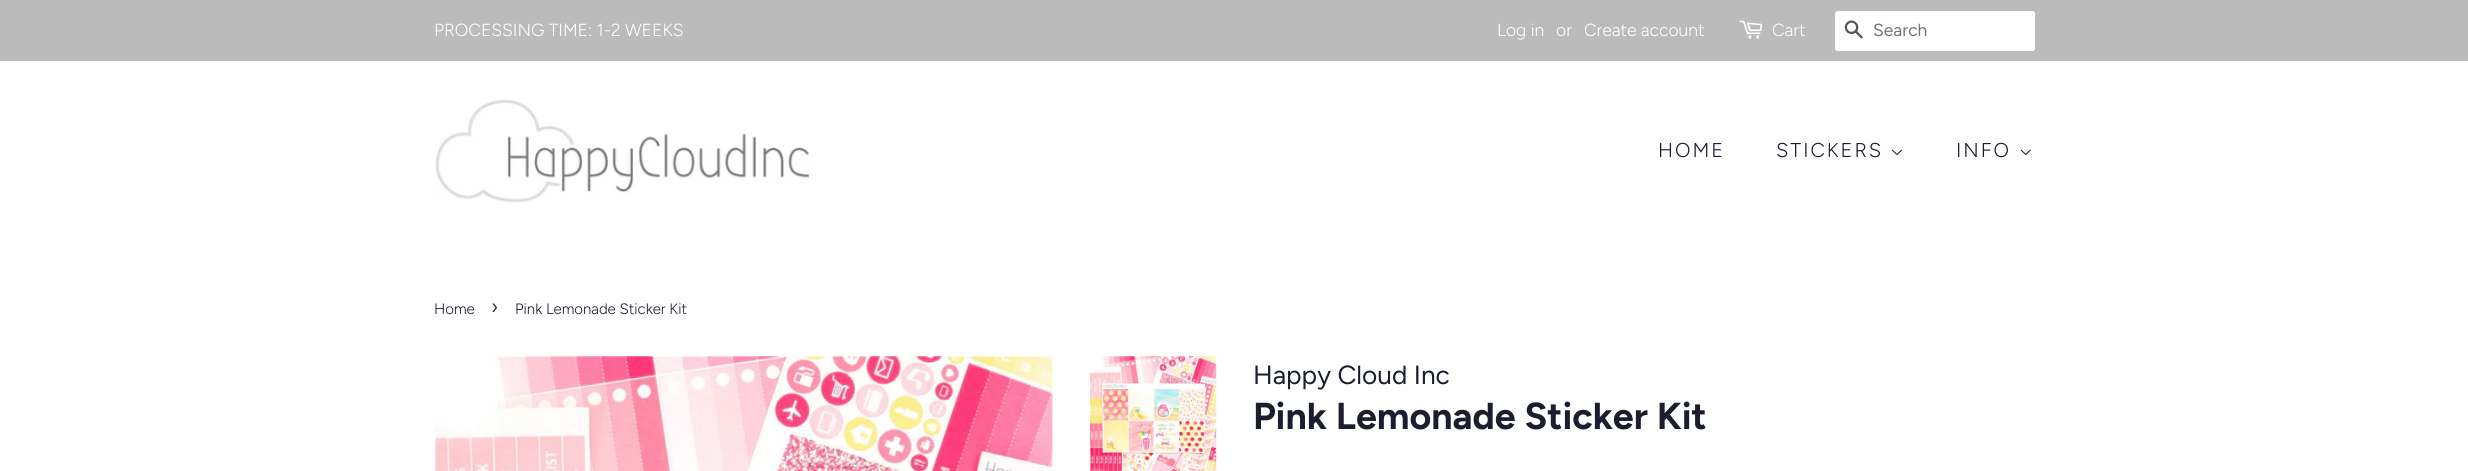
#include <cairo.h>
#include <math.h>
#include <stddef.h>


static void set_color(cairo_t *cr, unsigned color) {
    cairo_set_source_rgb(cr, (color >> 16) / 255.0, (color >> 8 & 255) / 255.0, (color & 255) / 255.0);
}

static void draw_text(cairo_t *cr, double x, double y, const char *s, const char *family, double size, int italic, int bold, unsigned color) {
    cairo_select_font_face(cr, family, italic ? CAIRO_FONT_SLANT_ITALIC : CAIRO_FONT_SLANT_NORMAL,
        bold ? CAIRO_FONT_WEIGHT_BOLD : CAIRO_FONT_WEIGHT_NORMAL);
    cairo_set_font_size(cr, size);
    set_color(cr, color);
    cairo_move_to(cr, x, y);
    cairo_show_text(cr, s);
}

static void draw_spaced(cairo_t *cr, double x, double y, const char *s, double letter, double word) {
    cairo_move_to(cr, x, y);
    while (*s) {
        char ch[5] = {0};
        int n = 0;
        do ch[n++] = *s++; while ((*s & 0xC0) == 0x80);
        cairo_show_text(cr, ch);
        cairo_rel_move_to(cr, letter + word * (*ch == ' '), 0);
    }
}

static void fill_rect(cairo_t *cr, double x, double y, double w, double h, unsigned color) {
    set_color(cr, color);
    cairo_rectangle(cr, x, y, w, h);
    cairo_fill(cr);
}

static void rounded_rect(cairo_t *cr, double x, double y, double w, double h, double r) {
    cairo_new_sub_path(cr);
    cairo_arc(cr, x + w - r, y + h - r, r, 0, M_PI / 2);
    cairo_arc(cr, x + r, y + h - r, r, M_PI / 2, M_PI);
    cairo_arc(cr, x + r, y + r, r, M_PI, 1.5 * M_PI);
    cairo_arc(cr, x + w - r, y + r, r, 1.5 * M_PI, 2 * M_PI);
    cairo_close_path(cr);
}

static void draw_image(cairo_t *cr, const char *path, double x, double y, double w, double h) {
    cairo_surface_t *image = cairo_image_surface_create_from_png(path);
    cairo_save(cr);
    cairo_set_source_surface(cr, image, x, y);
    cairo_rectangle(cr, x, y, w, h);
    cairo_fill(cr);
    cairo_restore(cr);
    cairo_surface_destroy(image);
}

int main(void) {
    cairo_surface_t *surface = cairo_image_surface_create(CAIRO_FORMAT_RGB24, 2468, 471);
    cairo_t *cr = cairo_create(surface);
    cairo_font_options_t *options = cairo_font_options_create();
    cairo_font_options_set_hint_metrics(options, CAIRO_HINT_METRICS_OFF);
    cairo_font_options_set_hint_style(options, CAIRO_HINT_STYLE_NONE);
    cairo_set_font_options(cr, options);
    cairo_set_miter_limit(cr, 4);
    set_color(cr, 0xFFFFFF);
    cairo_paint(cr);
    fill_rect(cr, 0, 0, 2468, 61, 0xBBBBBB);
    draw_text(cr, 434, 36, "PROCESSING TIME: 1-2 WEEKS", "Figtree Light", 17.5, 0, 0, 0xFFFFFF);
    draw_text(cr, 1497, 36, "Log in", "Figtree Light", 17.5, 0, 0, 0xFFFFFF);
    draw_text(cr, 1556, 36, "or", "Figtree Light", 17.5, 0, 0, 0xFFFFFF);
    draw_text(cr, 1584, 36, "Create account", "Figtree Light", 17.5, 0, 0, 0xFFFFFF);
    draw_image(cr, "assets/img1.png", 1739, 20, 24, 19);
    draw_text(cr, 1772, 36, "Cart", "Figtree Light", 17.5, 0, 0, 0xFFFFFF);
    rounded_rect(cr, 1835, 11, 200, 40, 2.5);
    cairo_fill(cr);
    draw_image(cr, "assets/img2.png", 1844, 20, 19, 19);
    draw_text(cr, 1873, 36, "Search", "Figtree", 17.5, 0, 0, 0x757575);
    draw_image(cr, "assets/img3.png", 435, 99, 375, 104);
    cairo_select_font_face(cr, "Figtree Light", CAIRO_FONT_SLANT_NORMAL, CAIRO_FONT_WEIGHT_NORMAL);
    cairo_set_font_size(cr, 20);
    set_color(cr, 0x1B1E2F);
    draw_spaced(cr, 1658, 157, "HOME", 2, 0);
    draw_spaced(cr, 1776, 157, "STICKERS", 2, 0);
    draw_image(cr, "assets/img4.png", 1892, 149, 10, 7);
    draw_spaced(cr, 1956, 157, "INFO", 2, 0);
    draw_image(cr, "assets/img5.png", 2020, 149, 11, 7);
    draw_text(cr, 434, 314, "Home", "Figtree Light", 15, 0, 0, 0x1B1E2F);
    draw_text(cr, 491, 314, "›", "Figtree Light", 21, 0, 0, 0x1B1E2F);
    draw_text(cr, 515, 314, "Pink Lemonade Sticker Kit", "Figtree Light", 15, 0, 0, 0x1B1E2F);
    draw_image(cr, "assets/img6.png", 435, 356, 618, 115);
    draw_image(cr, "assets/img7.png", 1090, 356, 127, 115);
    draw_text(cr, 1253, 384, "Happy Cloud Inc", "Figtree", 26.25, 0, 0, 0x1B1E2F);
    draw_text(cr, 1253, 429, "Pink Lemonade Sticker Kit", "Figtree", 37.5, 0, 1, 0x1B1E2F);
    cairo_surface_write_to_png(surface, "output.png");
    cairo_font_options_destroy(options);
    cairo_destroy(cr);
    cairo_surface_destroy(surface);
    return 0;
}
